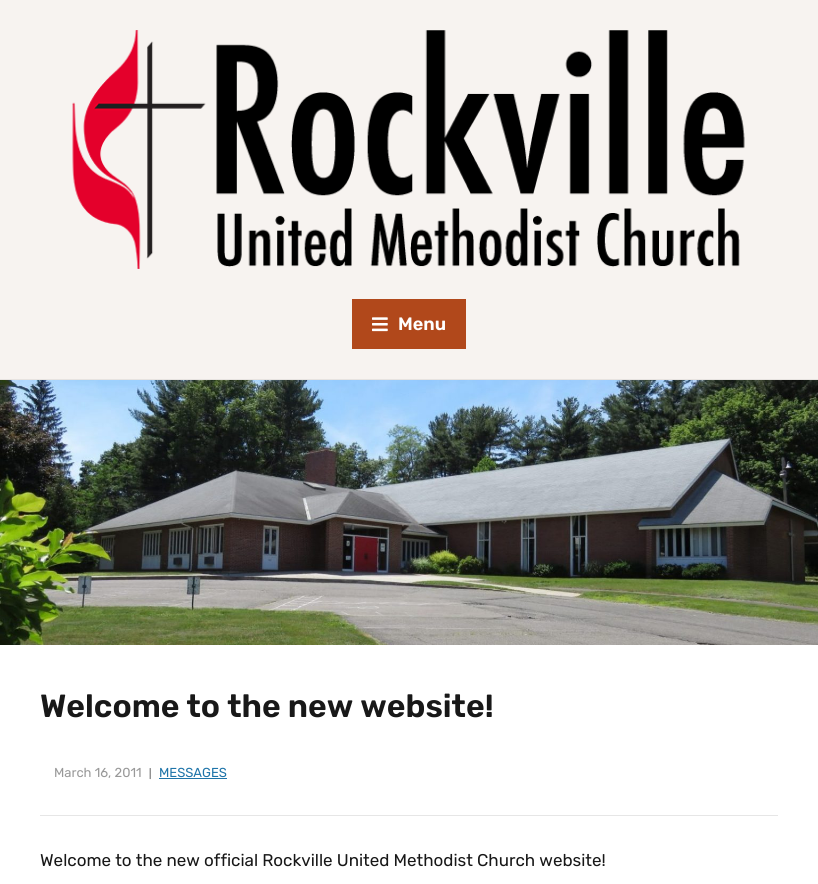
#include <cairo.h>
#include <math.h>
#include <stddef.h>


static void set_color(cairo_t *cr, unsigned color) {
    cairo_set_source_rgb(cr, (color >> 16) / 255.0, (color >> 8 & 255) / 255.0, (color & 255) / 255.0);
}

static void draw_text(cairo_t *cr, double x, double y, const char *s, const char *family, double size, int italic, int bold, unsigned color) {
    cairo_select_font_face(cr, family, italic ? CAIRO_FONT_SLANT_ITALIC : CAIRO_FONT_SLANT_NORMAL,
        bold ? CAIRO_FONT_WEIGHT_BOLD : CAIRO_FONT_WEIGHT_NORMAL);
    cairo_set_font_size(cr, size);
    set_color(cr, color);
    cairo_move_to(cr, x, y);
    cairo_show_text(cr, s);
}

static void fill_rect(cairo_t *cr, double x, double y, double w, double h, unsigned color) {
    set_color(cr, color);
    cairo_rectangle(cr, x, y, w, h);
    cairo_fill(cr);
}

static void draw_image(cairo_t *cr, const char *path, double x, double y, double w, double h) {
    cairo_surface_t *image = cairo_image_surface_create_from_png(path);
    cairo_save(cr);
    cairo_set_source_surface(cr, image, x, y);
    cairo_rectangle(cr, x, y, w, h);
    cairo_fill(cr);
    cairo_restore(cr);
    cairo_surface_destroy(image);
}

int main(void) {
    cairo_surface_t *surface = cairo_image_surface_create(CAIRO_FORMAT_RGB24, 818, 884);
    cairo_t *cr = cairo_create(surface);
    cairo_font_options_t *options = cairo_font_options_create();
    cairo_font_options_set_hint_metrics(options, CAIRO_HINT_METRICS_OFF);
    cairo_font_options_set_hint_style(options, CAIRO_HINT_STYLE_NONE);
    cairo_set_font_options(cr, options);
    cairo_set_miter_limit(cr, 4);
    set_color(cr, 0xFFFFFF);
    cairo_paint(cr);
    fill_rect(cr, 0, 0, 818, 379, 0xF7F3F0);
    fill_rect(cr, 0, 379, 818, 1, 0xE7E3E0);
    draw_image(cr, "assets/img1.png", 72, 30, 673, 239);
    fill_rect(cr, 352, 299, 114, 50, 0xB1481B);
    draw_image(cr, "assets/img2.png", 372, 317, 16, 15);
    draw_text(cr, 398, 330, "Menu", "Rubik SemiBold", 18, 0, 0, 0xFFFFFF);
    draw_image(cr, "assets/img3.png", 0, 380, 818, 265);
    fill_rect(cr, 40, 815, 738, 1, 0xE6E6E6);
    draw_text(cr, 40, 717, "Welcome to the new website!", "Rubik SemiBold", 32, 0, 0, 0x181818);
    draw_text(cr, 54, 777, "March 16, 2011", "Rubik", 13, 0, 0, 0x999999);
    draw_text(cr, 149, 777, "|", "Rubik", 10, 0, 0, 0x484848);
    draw_text(cr, 159, 777, "MESSAGES", "Rubik", 13, 0, 0, 0x1E74A9);
    fill_rect(cr, 159, 778, 68, 1, 0x1E74A9);
    draw_text(cr, 40, 866, "Welcome to the new official Rockville United Methodist Church website!", "Rubik", 17, 0, 0, 0x181818);
    cairo_surface_write_to_png(surface, "output.png");
    cairo_font_options_destroy(options);
    cairo_destroy(cr);
    cairo_surface_destroy(surface);
    return 0;
}
